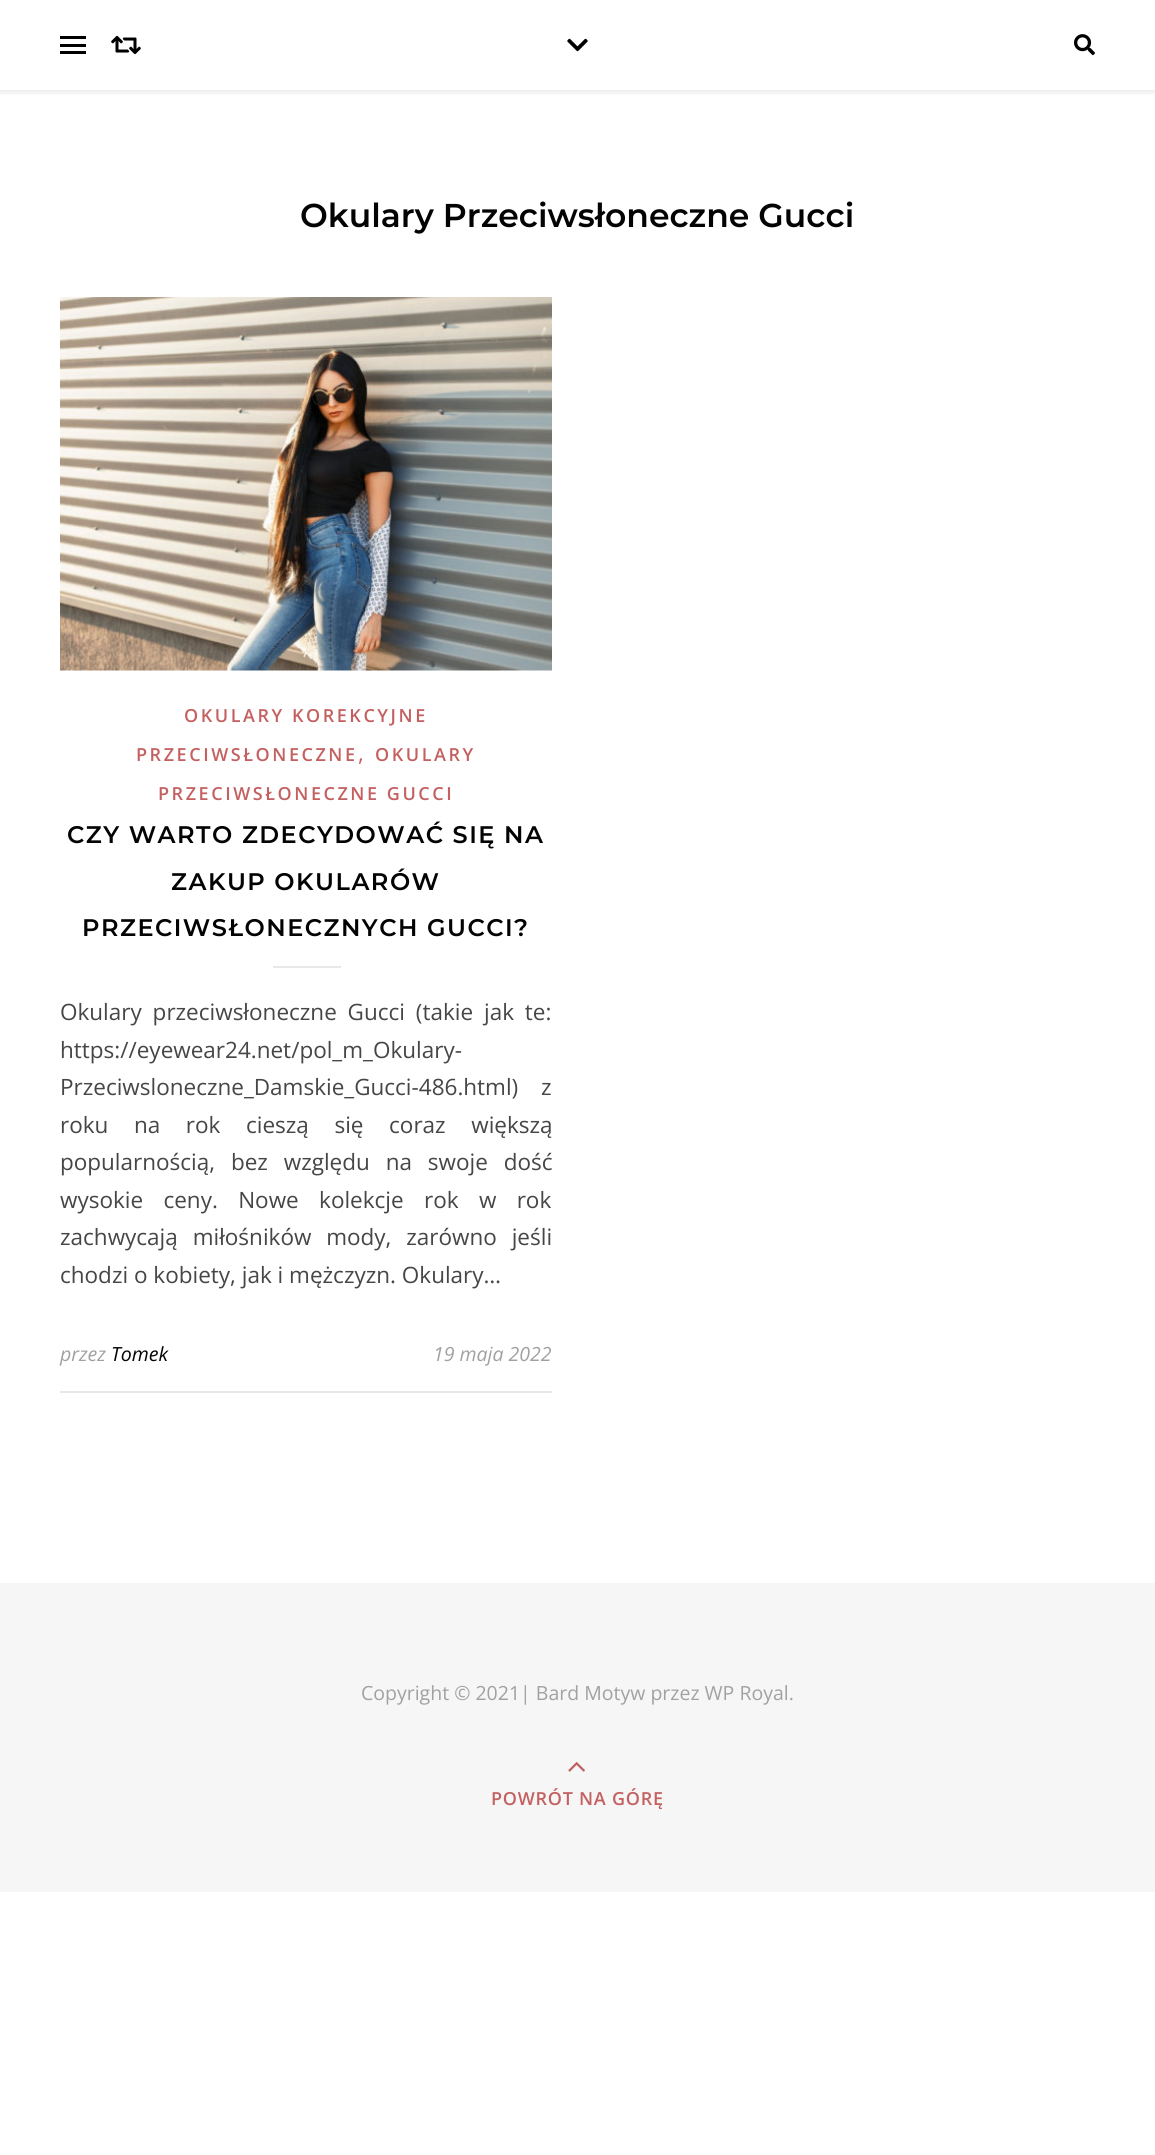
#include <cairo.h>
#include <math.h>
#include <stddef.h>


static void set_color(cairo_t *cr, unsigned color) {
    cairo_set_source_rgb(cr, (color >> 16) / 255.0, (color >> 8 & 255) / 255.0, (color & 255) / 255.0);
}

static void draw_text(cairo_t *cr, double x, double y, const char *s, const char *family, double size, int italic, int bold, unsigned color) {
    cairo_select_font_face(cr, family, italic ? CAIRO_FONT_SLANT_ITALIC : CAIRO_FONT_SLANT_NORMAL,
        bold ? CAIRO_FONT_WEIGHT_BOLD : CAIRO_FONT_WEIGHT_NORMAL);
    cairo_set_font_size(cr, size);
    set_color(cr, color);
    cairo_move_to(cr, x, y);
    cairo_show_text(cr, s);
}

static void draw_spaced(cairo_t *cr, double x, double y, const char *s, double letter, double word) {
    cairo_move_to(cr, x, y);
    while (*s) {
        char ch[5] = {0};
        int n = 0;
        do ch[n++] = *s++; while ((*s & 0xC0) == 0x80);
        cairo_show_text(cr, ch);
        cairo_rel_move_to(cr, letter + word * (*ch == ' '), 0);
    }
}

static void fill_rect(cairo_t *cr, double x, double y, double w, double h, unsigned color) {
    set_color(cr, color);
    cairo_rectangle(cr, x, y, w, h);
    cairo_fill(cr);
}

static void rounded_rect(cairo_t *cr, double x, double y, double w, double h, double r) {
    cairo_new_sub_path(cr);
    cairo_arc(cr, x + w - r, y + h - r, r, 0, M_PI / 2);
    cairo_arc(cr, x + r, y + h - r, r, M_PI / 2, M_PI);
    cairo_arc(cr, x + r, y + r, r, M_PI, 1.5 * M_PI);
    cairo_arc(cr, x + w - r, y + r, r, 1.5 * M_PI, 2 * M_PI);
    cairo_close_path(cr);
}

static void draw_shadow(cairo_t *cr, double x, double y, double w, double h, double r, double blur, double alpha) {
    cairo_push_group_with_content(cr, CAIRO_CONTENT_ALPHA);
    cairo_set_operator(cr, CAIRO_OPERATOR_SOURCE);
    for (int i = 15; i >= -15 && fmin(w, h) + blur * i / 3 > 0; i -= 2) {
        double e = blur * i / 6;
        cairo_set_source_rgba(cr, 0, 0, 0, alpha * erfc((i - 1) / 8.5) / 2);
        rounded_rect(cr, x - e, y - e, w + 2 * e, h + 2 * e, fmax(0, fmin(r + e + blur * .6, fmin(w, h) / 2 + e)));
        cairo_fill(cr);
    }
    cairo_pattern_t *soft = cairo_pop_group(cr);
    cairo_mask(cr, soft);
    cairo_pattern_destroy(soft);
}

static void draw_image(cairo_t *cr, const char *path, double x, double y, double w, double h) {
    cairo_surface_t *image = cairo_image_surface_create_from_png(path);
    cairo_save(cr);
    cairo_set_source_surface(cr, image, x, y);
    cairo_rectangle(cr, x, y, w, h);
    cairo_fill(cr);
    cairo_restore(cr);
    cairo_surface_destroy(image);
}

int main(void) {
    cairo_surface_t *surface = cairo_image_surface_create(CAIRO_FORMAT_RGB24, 1155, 2155);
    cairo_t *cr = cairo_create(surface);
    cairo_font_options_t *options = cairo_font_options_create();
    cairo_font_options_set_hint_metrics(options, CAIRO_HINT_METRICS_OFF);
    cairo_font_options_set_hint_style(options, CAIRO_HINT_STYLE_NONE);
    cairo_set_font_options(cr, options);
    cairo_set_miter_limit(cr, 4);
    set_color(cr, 0xFFFFFF);
    cairo_paint(cr);
    cairo_save(cr);
    cairo_rectangle(cr, 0, 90, 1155, 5);
    cairo_clip(cr);
    set_color(cr, 0x000000);
    draw_shadow(cr, 0, 2, 1155, 90, 0, 4, 0.1);
    cairo_restore(cr);
    fill_rect(cr, 60, 36, 26, 3, 0x000000);
    fill_rect(cr, 60, 44, 26, 3, 0x000000);
    fill_rect(cr, 60, 51, 26, 3, 0x000000);
    draw_image(cr, "assets/img1.png", 111, 35, 30, 20);
    draw_image(cr, "assets/img2.png", 567, 38, 21, 14);
    draw_image(cr, "assets/img3.png", 1074, 34, 21, 22);
    draw_text(cr, 300, 227, "Okulary Przeciwsłoneczne Gucci", "Montserrat SemiBold", 33, 0, 0, 0x030303);
    draw_image(cr, "assets/img4.png", 60, 297, 492, 374);
    cairo_select_font_face(cr, "Open Sans SemiBold", CAIRO_FONT_SLANT_NORMAL, CAIRO_FONT_WEIGHT_NORMAL);
    cairo_set_font_size(cr, 18);
    set_color(cr, 0xC46060);
    draw_spaced(cr, 184, 722, "OKULARY KOREKCYJNE", 2.55, 0);
    draw_spaced(cr, 136, 761, "PRZECIWSŁONECZNE", 2.55, 0);
    draw_text(cr, 358, 761, ",", "Open Sans", 22.5, 0, 0, 0xC46060);
    cairo_select_font_face(cr, "Open Sans SemiBold", CAIRO_FONT_SLANT_NORMAL, CAIRO_FONT_WEIGHT_NORMAL);
    cairo_set_font_size(cr, 18);
    draw_spaced(cr, 375, 761, "OKULARY", 2.55, 0);
    draw_spaced(cr, 158, 800, "PRZECIWSŁONECZNE GUCCI", 2.55, 0);
    cairo_select_font_face(cr, "Montserrat SemiBold", CAIRO_FONT_SLANT_NORMAL, CAIRO_FONT_WEIGHT_NORMAL);
    cairo_set_font_size(cr, 24);
    set_color(cr, 0x030303);
    draw_spaced(cr, 67, 843, "CZY WARTO ZDECYDOWAĆ SIĘ NA", 1.5, 0);
    draw_spaced(cr, 171, 890, "ZAKUP OKULARÓW", 1.5, 0);
    draw_spaced(cr, 82, 936, "PRZECIWSŁONECZNYCH GUCCI?", 1.5, 0);
    fill_rect(cr, 273, 966, 68, 2, 0xE8E8E8);
    cairo_select_font_face(cr, "Open Sans", CAIRO_FONT_SLANT_NORMAL, CAIRO_FONT_WEIGHT_NORMAL);
    cairo_set_font_size(cr, 22.5);
    set_color(cr, 0x464646);
    draw_spaced(cr, 60, 1020, "Okulary przeciwsłoneczne Gucci (takie jak te:", 0, 5);
    draw_text(cr, 60, 1058, "https://eyewear24.net/pol_m_Okulary-", "Open Sans", 22.5, 0, 0, 0x464646);
    draw_spaced(cr, 60, 1095, "Przeciwsloneczne_Damskie_Gucci-486.html) z", 0, 17);
    draw_spaced(cr, 60, 1133, "roku na rok cieszą się coraz większą", 0, 19.75);
    draw_spaced(cr, 60, 1170, "popularnością, bez względu na swoje dość", 0, 10);
    draw_spaced(cr, 60, 1208, "wysokie ceny. Nowe kolekcje rok w rok", 0, 14.5);
    draw_spaced(cr, 60, 1245, "zachwycają miłośników mody, zarówno jeśli", 0, 9);
    draw_text(cr, 60, 1283, "chodzi o kobiety, jak i mężczyzn. Okulary…", "Open Sans", 22.5, 0, 0, 0x464646);
    fill_rect(cr, 60, 1391, 492, 2, 0xE8E8E8);
    draw_text(cr, 60, 1361, "przez", "Open Sans", 19.5, 1, 0, 0xA1A1A1);
    draw_text(cr, 111, 1361, "Tomek", "Open Sans", 19.5, 1, 0, 0x030303);
    draw_text(cr, 433, 1361, "19 maja 2022", "Open Sans", 19.5, 1, 0, 0xA1A1A1);
    fill_rect(cr, 0, 1583, 1155, 309, 0xF6F6F6);
    draw_text(cr, 361, 1700, "Copyright © 2021| Bard Motyw przez WP Royal.", "Open Sans", 19.5, 0, 0, 0xA1A1A1);
    draw_image(cr, "assets/img5.png", 568, 1762, 17, 10);
    cairo_select_font_face(cr, "Open Sans SemiBold", CAIRO_FONT_SLANT_NORMAL, CAIRO_FONT_WEIGHT_NORMAL);
    cairo_set_font_size(cr, 18);
    set_color(cr, 0xC46060);
    draw_spaced(cr, 491, 1805, "POWRÓT NA GÓRĘ", 0.75, 0);
    cairo_surface_write_to_png(surface, "output.png");
    cairo_font_options_destroy(options);
    cairo_destroy(cr);
    cairo_surface_destroy(surface);
    return 0;
}
